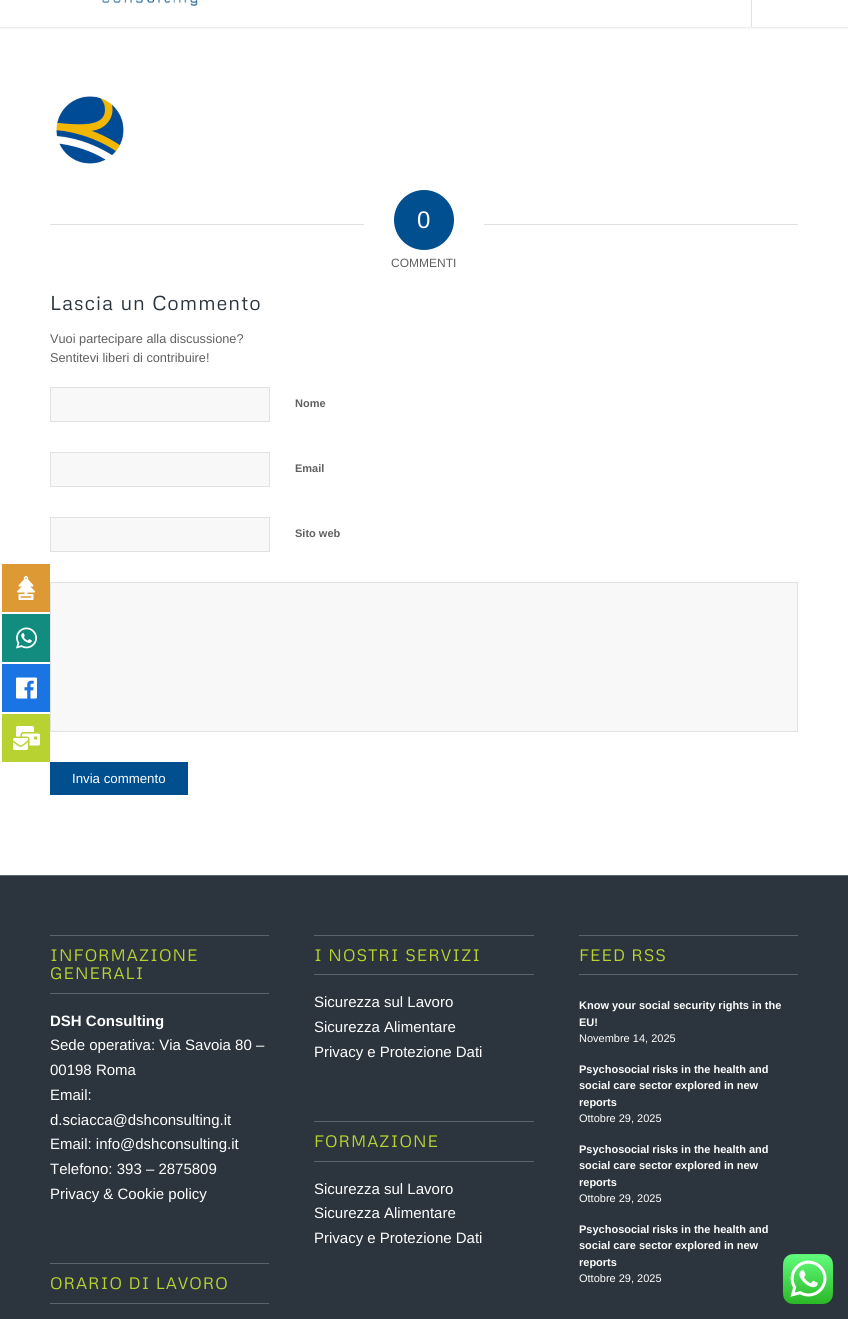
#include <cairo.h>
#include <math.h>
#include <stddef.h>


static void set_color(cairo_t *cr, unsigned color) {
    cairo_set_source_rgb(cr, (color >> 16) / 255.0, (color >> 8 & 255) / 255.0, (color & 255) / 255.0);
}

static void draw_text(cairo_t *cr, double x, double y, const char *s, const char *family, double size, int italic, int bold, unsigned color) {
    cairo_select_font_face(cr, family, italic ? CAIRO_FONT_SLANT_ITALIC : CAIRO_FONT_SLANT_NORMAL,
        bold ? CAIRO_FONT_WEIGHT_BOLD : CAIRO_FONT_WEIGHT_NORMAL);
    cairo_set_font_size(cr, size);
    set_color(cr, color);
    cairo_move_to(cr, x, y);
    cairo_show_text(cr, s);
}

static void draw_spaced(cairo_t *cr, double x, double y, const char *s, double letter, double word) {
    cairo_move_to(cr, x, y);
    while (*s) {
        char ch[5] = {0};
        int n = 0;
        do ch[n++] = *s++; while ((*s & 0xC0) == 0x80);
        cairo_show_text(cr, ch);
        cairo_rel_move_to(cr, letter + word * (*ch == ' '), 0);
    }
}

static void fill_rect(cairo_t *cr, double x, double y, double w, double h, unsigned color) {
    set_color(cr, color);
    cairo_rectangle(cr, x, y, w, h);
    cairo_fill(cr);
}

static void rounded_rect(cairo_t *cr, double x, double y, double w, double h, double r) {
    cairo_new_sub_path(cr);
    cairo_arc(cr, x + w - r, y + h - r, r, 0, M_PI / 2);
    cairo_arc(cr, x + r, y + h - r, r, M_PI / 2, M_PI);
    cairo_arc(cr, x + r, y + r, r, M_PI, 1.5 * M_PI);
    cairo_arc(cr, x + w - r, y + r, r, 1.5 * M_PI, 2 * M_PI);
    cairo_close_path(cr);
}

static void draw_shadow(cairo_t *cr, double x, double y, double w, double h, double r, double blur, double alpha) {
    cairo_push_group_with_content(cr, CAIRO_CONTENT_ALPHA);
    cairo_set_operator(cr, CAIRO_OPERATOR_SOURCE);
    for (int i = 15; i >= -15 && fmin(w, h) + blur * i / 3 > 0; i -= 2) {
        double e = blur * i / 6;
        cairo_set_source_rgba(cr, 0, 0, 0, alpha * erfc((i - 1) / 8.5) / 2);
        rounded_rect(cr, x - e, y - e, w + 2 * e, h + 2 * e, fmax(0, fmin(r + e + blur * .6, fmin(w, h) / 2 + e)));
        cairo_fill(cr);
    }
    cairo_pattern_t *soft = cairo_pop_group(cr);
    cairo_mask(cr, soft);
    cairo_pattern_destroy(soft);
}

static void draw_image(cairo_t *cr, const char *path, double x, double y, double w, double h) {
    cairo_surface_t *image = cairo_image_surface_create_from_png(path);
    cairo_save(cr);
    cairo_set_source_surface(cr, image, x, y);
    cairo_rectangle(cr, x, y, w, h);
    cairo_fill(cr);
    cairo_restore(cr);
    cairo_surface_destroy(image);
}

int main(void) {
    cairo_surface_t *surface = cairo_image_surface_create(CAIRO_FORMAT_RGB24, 848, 1319);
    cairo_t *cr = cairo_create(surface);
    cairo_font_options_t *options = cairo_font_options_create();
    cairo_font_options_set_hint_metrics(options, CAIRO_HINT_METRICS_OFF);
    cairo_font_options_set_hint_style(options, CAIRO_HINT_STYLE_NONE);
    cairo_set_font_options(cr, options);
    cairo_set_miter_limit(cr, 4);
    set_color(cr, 0xFFFFFF);
    cairo_paint(cr);
    fill_rect(cr, 2, 564, 48, 48, 0xDD9933);
    draw_image(cr, "assets/img1.png", 17, 576, 18, 24);
    fill_rect(cr, 2, 614, 48, 48, 0x128C7E);
    draw_image(cr, "assets/img2.png", 16, 627, 21, 22);
    fill_rect(cr, 2, 664, 48, 48, 0x1B74E4);
    draw_image(cr, "assets/img3.png", 16, 677, 21, 22);
    fill_rect(cr, 2, 714, 48, 48, 0xB8D331);
    draw_image(cr, "assets/img4.png", 13, 726, 27, 24);
    set_color(cr, 0x000000);
    draw_shadow(cr, -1, -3, 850, 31, 0, 1, 0.1);
    fill_rect(cr, 0, 0, 848, 27, 0xFFFFFF);
    draw_image(cr, "assets/img5.png", 102, 0, 96, 6);
    fill_rect(cr, 751, 0, 1, 27, 0xE1E1E1);
    draw_image(cr, "assets/img6.png", 56, 96, 68, 68);
    fill_rect(cr, 50, 224, 314, 1, 0xE1E1E1);
    set_color(cr, 0x014F8F);
    cairo_arc(cr, 424, 220, 30, 0, 2 * M_PI);
    cairo_fill(cr);
    draw_text(cr, 417, 228, "0", "Liberation Sans", 24, 0, 0, 0xFFFFFF);
    fill_rect(cr, 484, 224, 314, 1, 0xE1E1E1);
    draw_text(cr, 391, 267, "COMMENTI", "Liberation Sans", 12, 0, 0, 0x606060);
    cairo_select_font_face(cr, "Metrophobic", CAIRO_FONT_SLANT_NORMAL, CAIRO_FONT_WEIGHT_NORMAL);
    cairo_set_font_size(cr, 20);
    set_color(cr, 0x2C353D);
    draw_spaced(cr, 50, 310, "Lascia un Commento", 1, 0);
    draw_text(cr, 50, 343, "Vuoi partecipare alla discussione?", "Liberation Sans", 12.75, 0, 0, 0x606060);
    draw_text(cr, 50, 362, "Sentitevi liberi di contribuire!", "Liberation Sans", 12.75, 0, 0, 0x606060);
    set_color(cr, 0xF8F8F8);
    cairo_rectangle(cr, 50.5, 387.5, 219, 34);
    cairo_fill_preserve(cr);
    set_color(cr, 0xE1E1E1);
    cairo_set_line_width(cr, 1);
    cairo_stroke(cr);
    draw_text(cr, 295, 407, "Nome", "Liberation Sans", 11, 0, 1, 0x606060);
    set_color(cr, 0xF8F8F8);
    cairo_rectangle(cr, 50.5, 452.5, 219, 34);
    cairo_fill_preserve(cr);
    set_color(cr, 0xE1E1E1);
    cairo_stroke(cr);
    draw_text(cr, 295, 472, "Email", "Liberation Sans", 11, 0, 1, 0x606060);
    set_color(cr, 0xF8F8F8);
    cairo_rectangle(cr, 50.5, 517.5, 219, 34);
    cairo_fill_preserve(cr);
    set_color(cr, 0xE1E1E1);
    cairo_stroke(cr);
    draw_text(cr, 295, 537, "Sito web", "Liberation Sans", 11, 0, 1, 0x606060);
    set_color(cr, 0xF8F8F8);
    cairo_rectangle(cr, 50.5, 582.5, 747, 149);
    cairo_fill_preserve(cr);
    set_color(cr, 0xE1E1E1);
    cairo_stroke(cr);
    fill_rect(cr, 50, 762, 138, 33, 0x014F8F);
    draw_text(cr, 72, 783, "Invia commento", "Liberation Sans", 13.25, 0, 0, 0xFFFFFF);
    fill_rect(cr, 0, 876, 848, 443, 0x2C353D);
    fill_rect(cr, 0, 875, 848, 1, 0x5B646B);
    fill_rect(cr, 50, 935, 219, 1, 0x5B646B);
    fill_rect(cr, 50, 993, 219, 1, 0x5B646B);
    cairo_select_font_face(cr, "Metrophobic", CAIRO_FONT_SLANT_NORMAL, CAIRO_FONT_WEIGHT_NORMAL);
    cairo_set_font_size(cr, 16.5);
    set_color(cr, 0xB8D331);
    draw_spaced(cr, 50, 961, "INFORMAZIONE", 1, 0);
    draw_spaced(cr, 50, 979, "GENERALI", 1, 0);
    draw_text(cr, 50, 1026, "DSH Consulting", "Liberation Sans", 15, 0, 1, 0xFFFFFF);
    draw_text(cr, 50, 1050, "Sede operativa: Via Savoia 80 –", "Liberation Sans", 15, 0, 0, 0xFFFFFF);
    draw_text(cr, 50, 1075, "00198 Roma", "Liberation Sans", 15, 0, 0, 0xFFFFFF);
    draw_text(cr, 50, 1100, "Email:", "Liberation Sans", 15, 0, 0, 0xFFFFFF);
    draw_text(cr, 50, 1125, "d.sciacca@dshconsulting.it", "Liberation Sans", 15, 0, 0, 0xFFFFFF);
    draw_text(cr, 50, 1149, "Email: info@dshconsulting.it", "Liberation Sans", 15, 0, 0, 0xFFFFFF);
    draw_text(cr, 50, 1174, "Telefono: 393 – 2875809", "Liberation Sans", 15, 0, 0, 0xFFFFFF);
    draw_text(cr, 50, 1199, "Privacy & Cookie policy", "Liberation Sans", 15, 0, 0, 0xFFFFFF);
    fill_rect(cr, 50, 1263, 219, 1, 0x5B646B);
    fill_rect(cr, 50, 1303, 219, 1, 0x5B646B);
    cairo_select_font_face(cr, "Metrophobic", CAIRO_FONT_SLANT_NORMAL, CAIRO_FONT_WEIGHT_NORMAL);
    cairo_set_font_size(cr, 16.5);
    set_color(cr, 0xB8D331);
    draw_spaced(cr, 50, 1289, "ORARIO DI LAVORO", 1, 0);
    fill_rect(cr, 314, 935, 220, 1, 0x5B646B);
    fill_rect(cr, 314, 974, 220, 1, 0x5B646B);
    set_color(cr, 0xB8D331);
    draw_spaced(cr, 314, 961, "I NOSTRI SERVIZI", 1, 0);
    draw_text(cr, 314, 1007, "Sicurezza sul Lavoro", "Liberation Sans", 15, 0, 0, 0xFFFFFF);
    draw_text(cr, 314, 1032, "Sicurezza Alimentare", "Liberation Sans", 15, 0, 0, 0xFFFFFF);
    draw_text(cr, 314, 1057, "Privacy e Protezione Dati", "Liberation Sans", 15, 0, 0, 0xFFFFFF);
    fill_rect(cr, 314, 1121, 220, 1, 0x5B646B);
    fill_rect(cr, 314, 1161, 220, 1, 0x5B646B);
    cairo_select_font_face(cr, "Metrophobic", CAIRO_FONT_SLANT_NORMAL, CAIRO_FONT_WEIGHT_NORMAL);
    cairo_set_font_size(cr, 16.5);
    set_color(cr, 0xB8D331);
    draw_spaced(cr, 314, 1147, "FORMAZIONE", 1, 0);
    draw_text(cr, 314, 1194, "Sicurezza sul Lavoro", "Liberation Sans", 15, 0, 0, 0xFFFFFF);
    draw_text(cr, 314, 1218, "Sicurezza Alimentare", "Liberation Sans", 15, 0, 0, 0xFFFFFF);
    draw_text(cr, 314, 1243, "Privacy e Protezione Dati", "Liberation Sans", 15, 0, 0, 0xFFFFFF);
    fill_rect(cr, 579, 935, 219, 1, 0x5B646B);
    fill_rect(cr, 579, 974, 219, 1, 0x5B646B);
    cairo_select_font_face(cr, "Metrophobic", CAIRO_FONT_SLANT_NORMAL, CAIRO_FONT_WEIGHT_NORMAL);
    cairo_set_font_size(cr, 16.5);
    set_color(cr, 0xB8D331);
    draw_spaced(cr, 579, 961, "FEED RSS", 1, 0);
    draw_text(cr, 579, 1009, "Know your social security rights in the", "Liberation Sans", 11, 0, 1, 0xFFFFFF);
    draw_text(cr, 579, 1026, "EU!", "Liberation Sans", 11, 0, 1, 0xFFFFFF);
    draw_text(cr, 579, 1042, "Novembre 14, 2025", "Liberation Sans", 11, 0, 0, 0xFFFFFF);
    draw_text(cr, 579, 1073, "Psychosocial risks in the health and", "Liberation Sans", 11, 0, 1, 0xFFFFFF);
    draw_text(cr, 579, 1089, "social care sector explored in new", "Liberation Sans", 11, 0, 1, 0xFFFFFF);
    draw_text(cr, 579, 1106, "reports", "Liberation Sans", 11, 0, 1, 0xFFFFFF);
    draw_text(cr, 579, 1122, "Ottobre 29, 2025", "Liberation Sans", 11, 0, 0, 0xFFFFFF);
    draw_text(cr, 579, 1153, "Psychosocial risks in the health and", "Liberation Sans", 11, 0, 1, 0xFFFFFF);
    draw_text(cr, 579, 1169, "social care sector explored in new", "Liberation Sans", 11, 0, 1, 0xFFFFFF);
    draw_text(cr, 579, 1186, "reports", "Liberation Sans", 11, 0, 1, 0xFFFFFF);
    draw_text(cr, 579, 1202, "Ottobre 29, 2025", "Liberation Sans", 11, 0, 0, 0xFFFFFF);
    draw_text(cr, 579, 1233, "Psychosocial risks in the health and", "Liberation Sans", 11, 0, 1, 0xFFFFFF);
    draw_text(cr, 579, 1249, "social care sector explored in new", "Liberation Sans", 11, 0, 1, 0xFFFFFF);
    draw_text(cr, 579, 1266, "reports", "Liberation Sans", 11, 0, 1, 0xFFFFFF);
    draw_text(cr, 579, 1282, "Ottobre 29, 2025", "Liberation Sans", 11, 0, 0, 0xFFFFFF);
    draw_image(cr, "assets/img7.png", 783, 1254, 50, 50);
    cairo_surface_write_to_png(surface, "output.png");
    cairo_font_options_destroy(options);
    cairo_destroy(cr);
    cairo_surface_destroy(surface);
    return 0;
}
